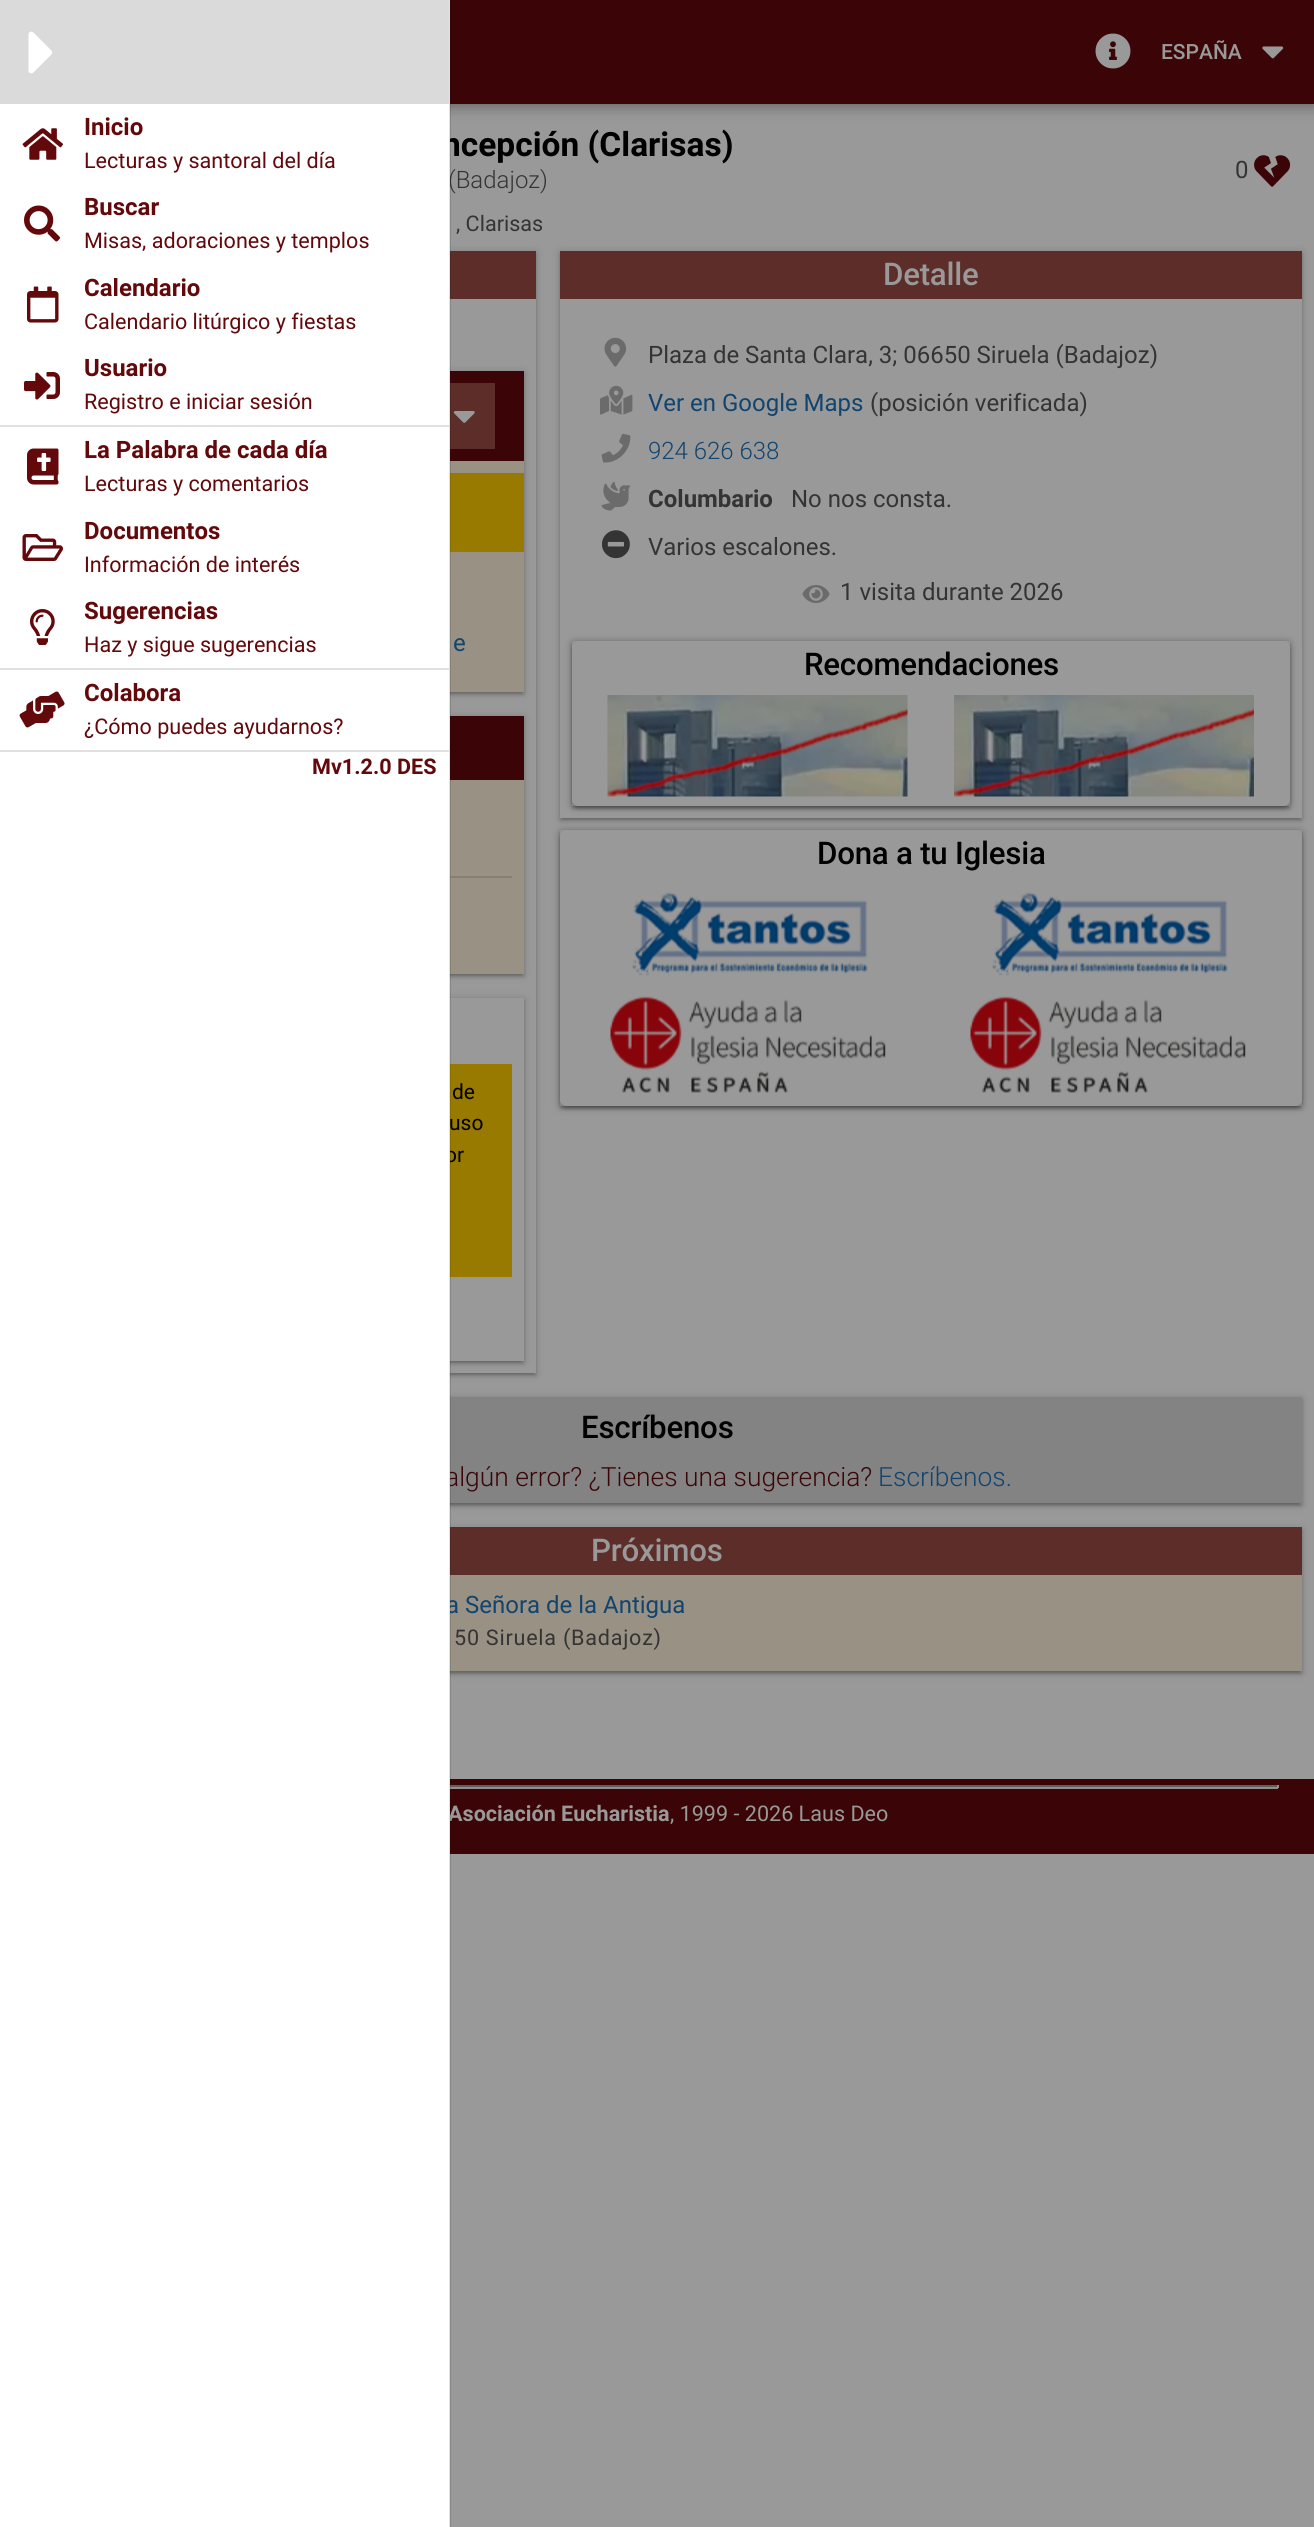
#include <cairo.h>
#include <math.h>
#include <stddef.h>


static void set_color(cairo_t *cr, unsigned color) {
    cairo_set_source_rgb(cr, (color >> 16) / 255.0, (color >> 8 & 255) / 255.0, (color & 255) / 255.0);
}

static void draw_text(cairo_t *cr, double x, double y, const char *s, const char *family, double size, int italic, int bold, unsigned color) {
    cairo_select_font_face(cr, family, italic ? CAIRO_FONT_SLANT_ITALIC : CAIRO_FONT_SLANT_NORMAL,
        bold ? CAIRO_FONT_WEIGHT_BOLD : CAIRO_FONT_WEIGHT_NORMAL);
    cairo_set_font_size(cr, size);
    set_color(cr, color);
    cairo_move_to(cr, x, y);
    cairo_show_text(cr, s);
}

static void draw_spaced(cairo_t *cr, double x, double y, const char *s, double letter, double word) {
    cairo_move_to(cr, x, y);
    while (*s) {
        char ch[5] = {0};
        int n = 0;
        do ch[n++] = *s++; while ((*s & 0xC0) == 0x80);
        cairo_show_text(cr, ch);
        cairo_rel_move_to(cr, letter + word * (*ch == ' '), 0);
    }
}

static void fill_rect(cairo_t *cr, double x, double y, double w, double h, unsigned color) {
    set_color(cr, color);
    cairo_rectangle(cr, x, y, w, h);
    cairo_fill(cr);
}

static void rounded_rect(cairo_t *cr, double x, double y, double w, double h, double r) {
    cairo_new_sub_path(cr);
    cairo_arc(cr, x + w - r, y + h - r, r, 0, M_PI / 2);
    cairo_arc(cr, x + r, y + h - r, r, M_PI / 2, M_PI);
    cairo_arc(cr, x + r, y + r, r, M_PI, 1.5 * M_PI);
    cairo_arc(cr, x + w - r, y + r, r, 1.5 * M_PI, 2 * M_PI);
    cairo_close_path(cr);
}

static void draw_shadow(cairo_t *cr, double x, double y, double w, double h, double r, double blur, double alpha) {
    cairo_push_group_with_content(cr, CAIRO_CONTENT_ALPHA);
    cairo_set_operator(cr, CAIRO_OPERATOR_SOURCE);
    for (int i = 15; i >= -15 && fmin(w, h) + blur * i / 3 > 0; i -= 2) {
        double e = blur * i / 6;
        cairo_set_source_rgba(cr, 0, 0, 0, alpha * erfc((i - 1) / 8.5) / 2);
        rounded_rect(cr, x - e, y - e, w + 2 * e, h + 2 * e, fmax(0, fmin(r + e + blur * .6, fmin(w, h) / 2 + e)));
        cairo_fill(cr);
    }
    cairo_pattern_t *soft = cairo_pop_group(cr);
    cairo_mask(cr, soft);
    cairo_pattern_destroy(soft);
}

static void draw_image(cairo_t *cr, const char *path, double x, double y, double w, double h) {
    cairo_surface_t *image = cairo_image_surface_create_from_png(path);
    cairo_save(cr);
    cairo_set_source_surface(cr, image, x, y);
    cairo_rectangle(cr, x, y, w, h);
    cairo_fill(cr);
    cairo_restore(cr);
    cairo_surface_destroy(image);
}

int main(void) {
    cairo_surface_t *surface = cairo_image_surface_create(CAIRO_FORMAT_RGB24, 1314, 2527);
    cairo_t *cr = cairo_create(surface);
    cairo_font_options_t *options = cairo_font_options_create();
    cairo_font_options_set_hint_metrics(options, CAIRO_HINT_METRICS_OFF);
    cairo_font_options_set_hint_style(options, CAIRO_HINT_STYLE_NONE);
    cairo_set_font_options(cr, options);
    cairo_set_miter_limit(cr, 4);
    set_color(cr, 0x999999);
    cairo_paint(cr);
    fill_rect(cr, 450, 0, 864, 104, 0x3B0507);
    draw_image(cr, "assets/img1.png", 1095, 33, 36, 36);
    draw_image(cr, "assets/img2.png", 1262, 46, 22, 13);
    cairo_save(cr);
    cairo_set_fill_rule(cr, CAIRO_FILL_RULE_EVEN_ODD);
    cairo_new_path(cr);
    cairo_move_to(cr, 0, 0);
    cairo_line_to(cr, 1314, 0);
    cairo_line_to(cr, 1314, 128);
    cairo_line_to(cr, 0, 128);
    cairo_close_path(cr);
    cairo_move_to(cr, 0, 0);
    cairo_line_to(cr, 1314, 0);
    cairo_line_to(cr, 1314, 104);
    cairo_line_to(cr, 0, 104);
    cairo_close_path(cr);
    cairo_clip(cr);
    set_color(cr, 0x000000);
    draw_shadow(cr, 0, 0, 1314, 104, 0, 7.5, 0.24);
    cairo_restore(cr);
    cairo_save(cr);
    cairo_set_fill_rule(cr, CAIRO_FILL_RULE_EVEN_ODD);
    cairo_new_path(cr);
    cairo_move_to(cr, 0, 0);
    cairo_line_to(cr, 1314, 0);
    cairo_line_to(cr, 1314, 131);
    cairo_line_to(cr, 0, 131);
    cairo_close_path(cr);
    cairo_move_to(cr, 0, 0);
    cairo_line_to(cr, 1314, 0);
    cairo_line_to(cr, 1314, 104);
    cairo_line_to(cr, 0, 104);
    cairo_close_path(cr);
    cairo_clip(cr);
    set_color(cr, 0x000000);
    draw_shadow(cr, -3, -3, 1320, 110, 0, 7.5, 0.2);
    cairo_restore(cr);
    draw_text(cr, 1161, 59, "ESPAÑA", "Roboto Medium", 21, 0, 0, 0x999999);
    draw_text(cr, 442, 156, "ncepción (Clarisas)", "Roboto", 33.5, 0, 1, 0x000000);
    draw_text(cr, 448, 188, "(Badajoz)", "Roboto Light", 24, 0, 0, 0x343434);
    set_color(cr, 0x000000);
    draw_shadow(cr, 15, 258, 518, 1116, 0, 1, 0.12);
    draw_shadow(cr, 12, 254, 524, 1122, 0, 1.5, 0.14);
    draw_shadow(cr, 12, 252, 524, 1122, 0, 4, 0.2);
    fill_rect(cr, 450, 299, 86, 1074, 0x999999);
    set_color(cr, 0x000000);
    draw_shadow(cr, 27, 378, 494, 315, 0, 1, 0.12);
    draw_shadow(cr, 24, 374, 500, 321, 0, 1.5, 0.14);
    draw_shadow(cr, 24, 372, 500, 321, 0, 4, 0.2);
    draw_shadow(cr, 27, 723, 494, 252, 0, 1, 0.12);
    draw_shadow(cr, 24, 719, 500, 258, 0, 1.5, 0.14);
    draw_shadow(cr, 24, 717, 500, 258, 0, 4, 0.2);
    cairo_save(cr);
    cairo_set_fill_rule(cr, CAIRO_FILL_RULE_EVEN_ODD);
    cairo_new_path(cr);
    cairo_move_to(cr, 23, 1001);
    cairo_line_to(cr, 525, 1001);
    cairo_line_to(cr, 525, 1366);
    cairo_line_to(cr, 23, 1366);
    cairo_close_path(cr);
    cairo_move_to(cr, 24, 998);
    cairo_line_to(cr, 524, 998);
    cairo_line_to(cr, 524, 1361);
    cairo_line_to(cr, 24, 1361);
    cairo_close_path(cr);
    cairo_clip(cr);
    draw_shadow(cr, 27, 1005, 494, 357, 0, 1, 0.12);
    cairo_restore(cr);
    cairo_save(cr);
    cairo_set_fill_rule(cr, CAIRO_FILL_RULE_EVEN_ODD);
    cairo_new_path(cr);
    cairo_move_to(cr, 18, 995);
    cairo_line_to(cr, 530, 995);
    cairo_line_to(cr, 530, 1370);
    cairo_line_to(cr, 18, 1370);
    cairo_close_path(cr);
    cairo_move_to(cr, 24, 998);
    cairo_line_to(cr, 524, 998);
    cairo_line_to(cr, 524, 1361);
    cairo_line_to(cr, 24, 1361);
    cairo_close_path(cr);
    cairo_clip(cr);
    draw_shadow(cr, 24, 1001, 500, 363, 0, 1.5, 0.14);
    cairo_restore(cr);
    cairo_save(cr);
    cairo_set_fill_rule(cr, CAIRO_FILL_RULE_EVEN_ODD);
    cairo_new_path(cr);
    cairo_move_to(cr, 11, 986);
    cairo_line_to(cr, 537, 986);
    cairo_line_to(cr, 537, 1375);
    cairo_line_to(cr, 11, 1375);
    cairo_close_path(cr);
    cairo_move_to(cr, 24, 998);
    cairo_line_to(cr, 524, 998);
    cairo_line_to(cr, 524, 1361);
    cairo_line_to(cr, 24, 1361);
    cairo_close_path(cr);
    cairo_clip(cr);
    draw_shadow(cr, 24, 999, 500, 363, 0, 4, 0.2);
    cairo_restore(cr);
    fill_rect(cr, 450, 1064, 62, 213, 0x997A00);
    draw_text(cr, 445, 1162, "or", "Roboto", 21, 0, 0, 0x000000);
    set_color(cr, 0x000000);
    draw_shadow(cr, 15, 1404, 1284, 101, 0, 1, 0.12);
    draw_shadow(cr, 12, 1400, 1290, 106, 0, 1.5, 0.14);
    draw_shadow(cr, 12, 1398, 1290, 107, 0, 4, 0.2);
    fill_rect(cr, 450, 1397, 852, 106, 0x838383);
    draw_text(cr, 445, 1486, "algún error? ¿Tienes una sugerencia?", "Roboto Light", 26.4, 0, 0, 0x3B0507);
    set_color(cr, 0x000000);
    draw_shadow(cr, 15, 1535, 1284, 138, 0, 1, 0.12);
    draw_shadow(cr, 12, 1530, 1290, 144, 0, 1.5, 0.14);
    draw_shadow(cr, 12, 1529, 1290, 144, 0, 4, 0.2);
    fill_rect(cr, 450, 1575, 852, 96, 0x999184);
    draw_text(cr, 446, 1613, "a Señora de la Antigua", "Roboto", 24, 0, 0, 0x11446E);
    fill_rect(cr, 450, 1779, 864, 75, 0x3B0507);
    draw_text(cr, 448, 1821, "Asociación Eucharistia", "Roboto", 21.6, 0, 1, 0x999999);
    fill_rect(cr, 0, 0, 450, 2527, 0xFFFFFF);
    fill_rect(cr, 450, 251, 86, 48, 0x5C2D29);
    fill_rect(cr, 450, 461, 74, 231, 0x999184);
    fill_rect(cr, 450, 371, 74, 90, 0x3B0507);
    fill_rect(cr, 450, 383, 45, 66, 0x5C2D29);
    fill_rect(cr, 450, 473, 74, 79, 0x997A00);
    fill_rect(cr, 450, 780, 74, 194, 0x999184);
    fill_rect(cr, 450, 716, 74, 64, 0x3B0507);
    fill_rect(cr, 450, 876, 62, 2, 0x867F74);
    fill_rect(cr, 450, 1527, 852, 48, 0x5C2D29);
    fill_rect(cr, 450, 1785, 828, 2, 0x5F5F5F);
    fill_rect(cr, 1277, 1785, 2, 3, 0x8F8F8F);
    fill_rect(cr, 450, 1787, 828, 2, 0x8F8F8F);
    cairo_set_source_rgba(cr, 0, 0, 0, 0.12);
    cairo_rectangle(cr, 449, 0, 2, 2527);
    cairo_fill(cr);
    fill_rect(cr, 0, 0, 449, 104, 0xDADADA);
    draw_image(cr, "assets/img3.png", 28, 31, 25, 43);
    draw_image(cr, "assets/img4.png", 22, 128, 41, 32);
    draw_text(cr, 84, 135, "Inicio", "Roboto", 24, 0, 1, 0x63080B);
    draw_text(cr, 84, 168, "Lecturas y santoral del día", "Roboto", 21.6, 0, 0, 0x63080B);
    draw_image(cr, "assets/img5.png", 24, 205, 36, 37);
    draw_text(cr, 84, 215, "Buscar", "Roboto", 24, 0, 1, 0x63080B);
    draw_text(cr, 84, 248, "Misas, adoraciones y templos", "Roboto", 21.6, 0, 0, 0x63080B);
    draw_image(cr, "assets/img6.png", 27, 286, 32, 37);
    draw_text(cr, 84, 296, "Calendario", "Roboto", 24, 0, 1, 0x63080B);
    draw_text(cr, 84, 329, "Calendario litúrgico y fiestas", "Roboto", 21.6, 0, 0, 0x63080B);
    draw_image(cr, "assets/img7.png", 24, 372, 36, 28);
    draw_text(cr, 84, 376, "Usuario", "Roboto", 24, 0, 1, 0x63080B);
    draw_text(cr, 84, 409, "Registro e iniciar sesión", "Roboto", 21.6, 0, 0, 0x63080B);
    fill_rect(cr, 0, 425, 449, 2, 0xE0E0E0);
    draw_image(cr, "assets/img8.png", 27, 448, 32, 37);
    draw_text(cr, 84, 458, "La Palabra de cada día", "Roboto", 24, 0, 1, 0x63080B);
    draw_text(cr, 84, 491, "Lecturas y comentarios", "Roboto", 21.6, 0, 0, 0x63080B);
    draw_image(cr, "assets/img9.png", 22, 534, 41, 27);
    draw_text(cr, 84, 539, "Documentos", "Roboto", 24, 0, 1, 0x63080B);
    draw_text(cr, 84, 572, "Información de interés", "Roboto", 21.6, 0, 0, 0x63080B);
    draw_image(cr, "assets/img10.png", 30, 609, 25, 36);
    draw_text(cr, 84, 619, "Sugerencias", "Roboto", 24, 0, 1, 0x63080B);
    draw_text(cr, 84, 652, "Haz y sigue sugerencias", "Roboto", 21.6, 0, 0, 0x63080B);
    fill_rect(cr, 0, 668, 449, 2, 0xE0E0E0);
    draw_image(cr, "assets/img11.png", 19, 691, 46, 37);
    draw_text(cr, 84, 701, "Colabora", "Roboto", 24, 0, 1, 0x63080B);
    draw_text(cr, 84, 734, "¿Cómo puedes ayudarnos?", "Roboto", 21.6, 0, 0, 0x63080B);
    fill_rect(cr, 0, 750, 449, 2, 0xE0E0E0);
    draw_text(cr, 312, 774, "Mv1.2.0 DES", "Roboto", 21.6, 0, 1, 0x63080B);
    draw_text(cr, 456, 231, ", Clarisas", "Roboto", 21.6, 0, 0, 0x343434);
    draw_text(cr, 1235, 178, "0", "Roboto", 24, 0, 0, 0x343434);
    draw_image(cr, "assets/img12.png", 1254, 155, 37, 32);
    draw_image(cr, "assets/img13.png", 453, 411, 22, 12);
    draw_text(cr, 453, 651, "e", "Roboto", 24, 0, 0, 0x11446E);
    draw_text(cr, 452, 1099, "de", "Roboto", 21, 0, 0, 0x000000);
    draw_text(cr, 449, 1130, "uso", "Roboto", 21, 0, 0, 0x000000);
    set_color(cr, 0x000000);
    draw_shadow(cr, 563, 258, 736, 561, 0, 1, 0.12);
    draw_shadow(cr, 560, 254, 742, 567, 0, 1.5, 0.14);
    draw_shadow(cr, 560, 252, 742, 567, 0, 4, 0.2);
    fill_rect(cr, 560, 299, 742, 519, 0x999999);
    fill_rect(cr, 560, 251, 742, 48, 0x5C2D29);
    cairo_select_font_face(cr, "Roboto Medium", CAIRO_FONT_SLANT_NORMAL, CAIRO_FONT_WEIGHT_NORMAL);
    cairo_set_font_size(cr, 31.25);
    set_color(cr, 0x999999);
    draw_spaced(cr, 883, 285, "Detalle", -0.25, 0);
    draw_image(cr, "assets/img14.png", 604, 337, 23, 30);
    draw_text(cr, 648, 363, "Plaza de Santa Clara, 3; 06650 Siruela (Badajoz)", "Roboto", 24, 0, 0, 0x343434);
    draw_image(cr, "assets/img15.png", 600, 385, 33, 30);
    draw_text(cr, 648, 411, "Ver en Google Maps", "Roboto", 24, 0, 0, 0x11446E);
    draw_text(cr, 870, 411, "(posición verificada)", "Roboto", 24, 0, 0, 0x343434);
    draw_image(cr, "assets/img16.png", 601, 433, 30, 30);
    draw_text(cr, 648, 459, "924 626 638", "Roboto Light", 24, 0, 0, 0x11446E);
    draw_image(cr, "assets/img17.png", 601, 481, 30, 30);
    draw_text(cr, 648, 507, "Columbario", "Roboto", 24, 0, 1, 0x343434);
    draw_text(cr, 791, 507, "No nos consta.", "Roboto", 24, 0, 0, 0x343434);
    draw_image(cr, "assets/img18.png", 602, 530, 28, 29);
    draw_text(cr, 648, 555, "Varios escalones.", "Roboto", 24, 0, 0, 0x343434);
    draw_image(cr, "assets/img19.png", 802, 585, 28, 18);
    draw_text(cr, 840, 600, "1 visita durante 2026", "Roboto", 24, 0, 0, 0x343434);
    set_color(cr, 0x000000);
    draw_shadow(cr, 575, 648, 712, 159, 3, 1, 0.12);
    draw_shadow(cr, 572, 644, 718, 165, 6, 1.5, 0.14);
    draw_shadow(cr, 572, 642, 718, 165, 6, 4, 0.2);
    set_color(cr, 0x999999);
    rounded_rect(cr, 572, 641, 718, 165, 6);
    cairo_fill(cr);
    cairo_save(cr);
    cairo_set_fill_rule(cr, CAIRO_FILL_RULE_EVEN_ODD);
    cairo_new_path(cr);
    cairo_move_to(cr, 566, 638);
    cairo_line_to(cr, 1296, 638);
    cairo_line_to(cr, 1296, 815);
    cairo_line_to(cr, 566, 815);
    cairo_close_path(cr);
    cairo_move_to(cr, 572, 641);
    cairo_line_to(cr, 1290, 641);
    cairo_line_to(cr, 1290, 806);
    cairo_line_to(cr, 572, 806);
    cairo_close_path(cr);
    cairo_clip(cr);
    set_color(cr, 0x000000);
    draw_shadow(cr, 572, 644, 718, 165, 0, 1.5, 0.14);
    cairo_restore(cr);
    cairo_save(cr);
    cairo_set_fill_rule(cr, CAIRO_FILL_RULE_EVEN_ODD);
    cairo_new_path(cr);
    cairo_move_to(cr, 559, 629);
    cairo_line_to(cr, 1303, 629);
    cairo_line_to(cr, 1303, 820);
    cairo_line_to(cr, 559, 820);
    cairo_close_path(cr);
    cairo_move_to(cr, 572, 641);
    cairo_line_to(cr, 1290, 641);
    cairo_line_to(cr, 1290, 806);
    cairo_line_to(cr, 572, 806);
    cairo_close_path(cr);
    cairo_clip(cr);
    set_color(cr, 0x000000);
    draw_shadow(cr, 572, 642, 718, 165, 0, 4, 0.2);
    cairo_restore(cr);
    cairo_select_font_face(cr, "Roboto Medium", CAIRO_FONT_SLANT_NORMAL, CAIRO_FONT_WEIGHT_NORMAL);
    cairo_set_font_size(cr, 31.25);
    set_color(cr, 0x000000);
    draw_spaced(cr, 804, 675, "Recomendaciones", -0.25, 0);
    draw_image(cr, "assets/img20.png", 607, 695, 301, 102);
    draw_image(cr, "assets/img21.png", 954, 695, 300, 102);
    set_color(cr, 0x000000);
    draw_shadow(cr, 563, 837, 736, 270, 3, 1, 0.12);
    draw_shadow(cr, 560, 833, 742, 276, 6, 1.5, 0.14);
    draw_shadow(cr, 560, 831, 742, 276, 6, 4, 0.2);
    set_color(cr, 0x999999);
    rounded_rect(cr, 560, 830, 742, 276, 6);
    cairo_fill(cr);
    cairo_save(cr);
    cairo_set_fill_rule(cr, CAIRO_FILL_RULE_EVEN_ODD);
    cairo_new_path(cr);
    cairo_move_to(cr, 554, 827);
    cairo_line_to(cr, 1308, 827);
    cairo_line_to(cr, 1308, 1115);
    cairo_line_to(cr, 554, 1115);
    cairo_close_path(cr);
    cairo_move_to(cr, 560, 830);
    cairo_line_to(cr, 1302, 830);
    cairo_line_to(cr, 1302, 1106);
    cairo_line_to(cr, 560, 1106);
    cairo_close_path(cr);
    cairo_clip(cr);
    set_color(cr, 0x000000);
    draw_shadow(cr, 560, 833, 742, 276, 0, 1.5, 0.14);
    cairo_restore(cr);
    cairo_save(cr);
    cairo_set_fill_rule(cr, CAIRO_FILL_RULE_EVEN_ODD);
    cairo_new_path(cr);
    cairo_move_to(cr, 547, 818);
    cairo_line_to(cr, 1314, 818);
    cairo_line_to(cr, 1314, 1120);
    cairo_line_to(cr, 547, 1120);
    cairo_close_path(cr);
    cairo_move_to(cr, 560, 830);
    cairo_line_to(cr, 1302, 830);
    cairo_line_to(cr, 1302, 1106);
    cairo_line_to(cr, 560, 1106);
    cairo_close_path(cr);
    cairo_clip(cr);
    set_color(cr, 0x000000);
    draw_shadow(cr, 560, 831, 742, 276, 0, 4, 0.2);
    cairo_restore(cr);
    set_color(cr, 0x000000);
    draw_spaced(cr, 817, 864, "Dona a tu Iglesia", -0.25, 0);
    draw_image(cr, "assets/img22.png", 632, 892, 236, 84);
    draw_image(cr, "assets/img22.png", 992, 892, 236, 84);
    draw_image(cr, "assets/img23.png", 610, 996, 276, 97);
    draw_image(cr, "assets/img23.png", 970, 996, 276, 97);
    draw_spaced(cr, 581, 1438, "Escríbenos", -0.25, 0);
    draw_text(cr, 878, 1486, "Escríbenos.", "Roboto Light", 26.4, 0, 0, 0x11446E);
    cairo_select_font_face(cr, "Roboto Medium", CAIRO_FONT_SLANT_NORMAL, CAIRO_FONT_WEIGHT_NORMAL);
    cairo_set_font_size(cr, 31.25);
    set_color(cr, 0x999999);
    draw_spaced(cr, 591, 1561, "Próximos", -0.25, 0);
    cairo_select_font_face(cr, "Roboto", CAIRO_FONT_SLANT_NORMAL, CAIRO_FONT_WEIGHT_NORMAL);
    cairo_set_font_size(cr, 21.6);
    set_color(cr, 0x343434);
    draw_spaced(cr, 454, 1645, "50 Siruela (Badajoz)", 0.75, 0);
    draw_text(cr, 670, 1821, ", 1999 - 2026 Laus Deo", "Roboto", 21.6, 0, 0, 0x999999);
    cairo_surface_write_to_png(surface, "output.png");
    cairo_font_options_destroy(options);
    cairo_destroy(cr);
    cairo_surface_destroy(surface);
    return 0;
}
